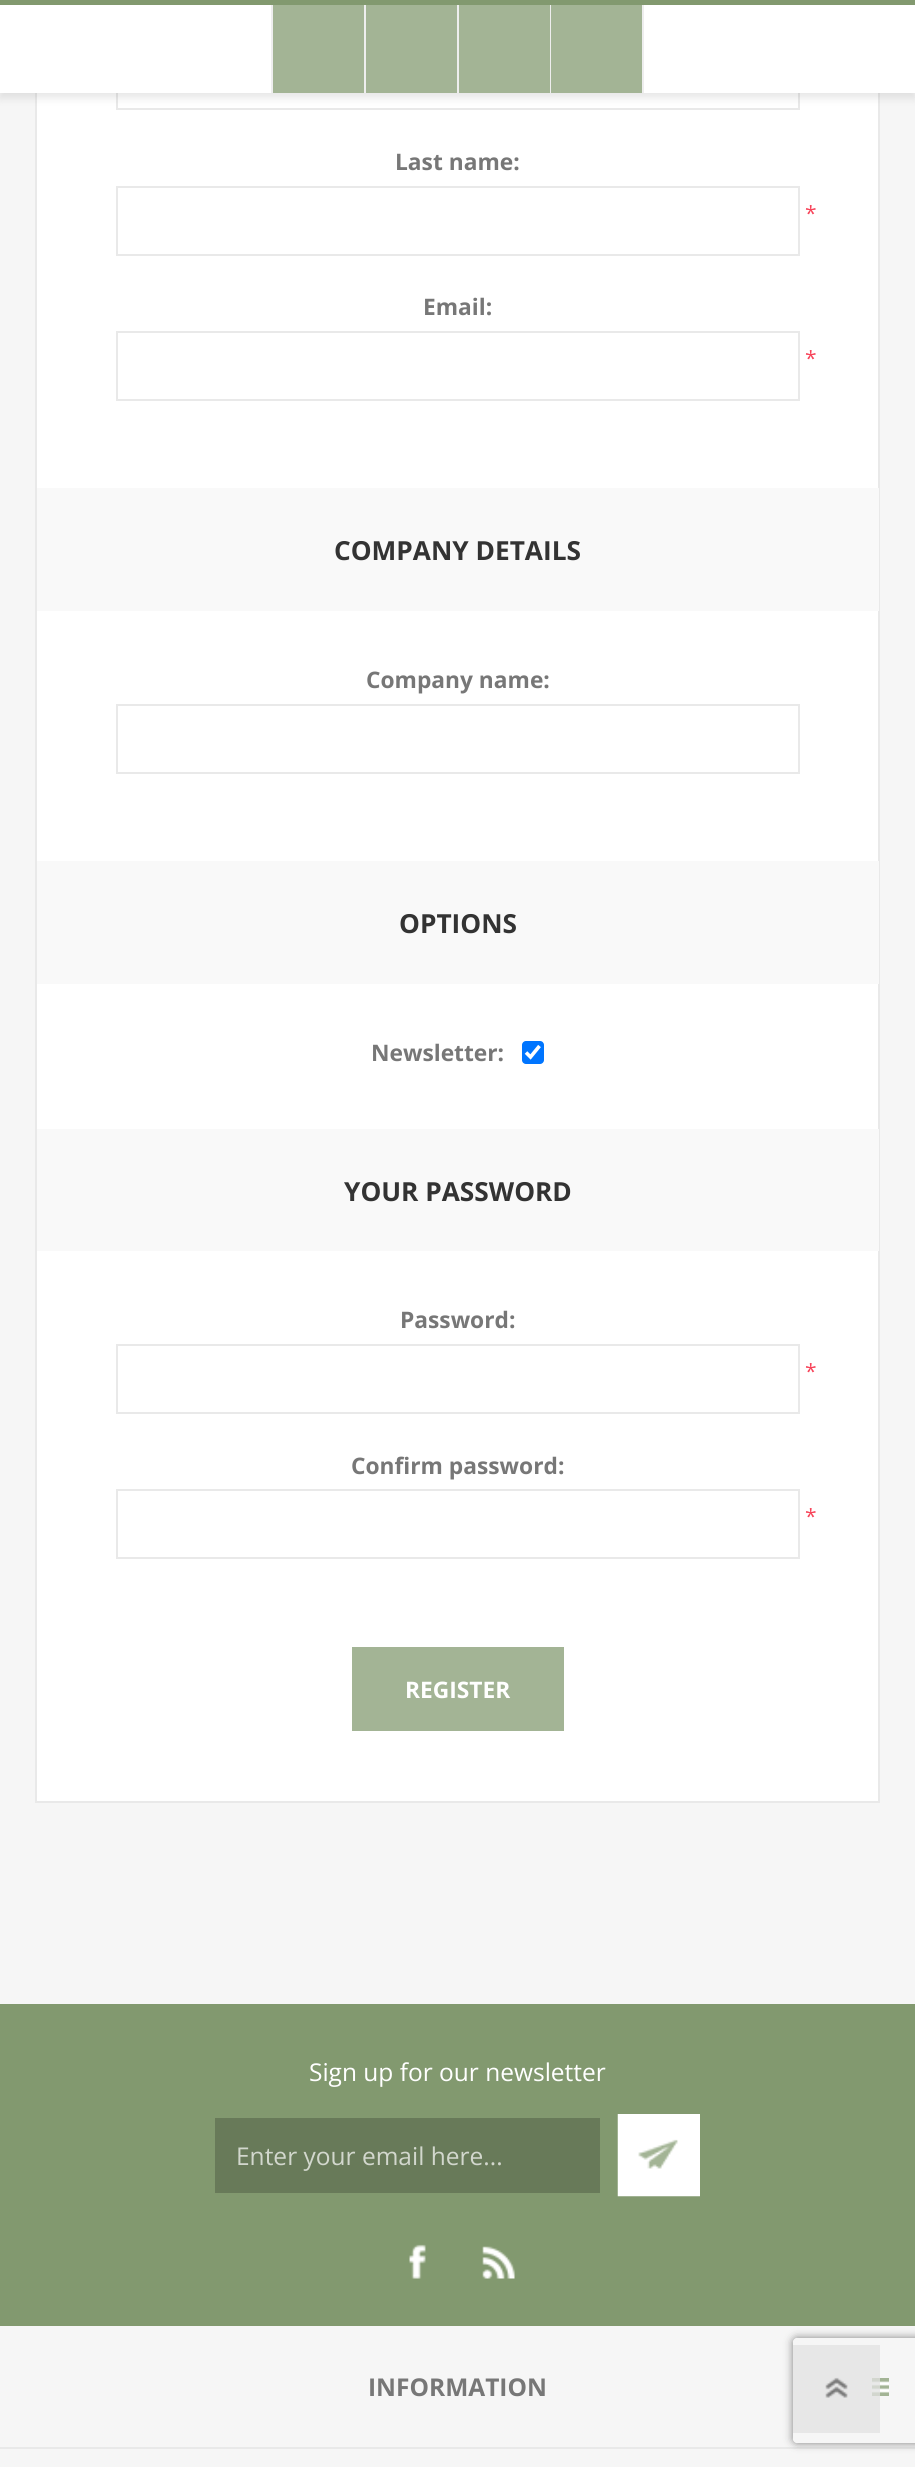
#include <cairo.h>
#include <math.h>
#include <stddef.h>


static void set_color(cairo_t *cr, unsigned color) {
    cairo_set_source_rgb(cr, (color >> 16) / 255.0, (color >> 8 & 255) / 255.0, (color & 255) / 255.0);
}

static void draw_text(cairo_t *cr, double x, double y, const char *s, const char *family, double size, int italic, int bold, unsigned color) {
    cairo_select_font_face(cr, family, italic ? CAIRO_FONT_SLANT_ITALIC : CAIRO_FONT_SLANT_NORMAL,
        bold ? CAIRO_FONT_WEIGHT_BOLD : CAIRO_FONT_WEIGHT_NORMAL);
    cairo_set_font_size(cr, size);
    set_color(cr, color);
    cairo_move_to(cr, x, y);
    cairo_show_text(cr, s);
}

static void fill_rect(cairo_t *cr, double x, double y, double w, double h, unsigned color) {
    set_color(cr, color);
    cairo_rectangle(cr, x, y, w, h);
    cairo_fill(cr);
}

static void rounded_rect(cairo_t *cr, double x, double y, double w, double h, double r) {
    cairo_new_sub_path(cr);
    cairo_arc(cr, x + w - r, y + h - r, r, 0, M_PI / 2);
    cairo_arc(cr, x + r, y + h - r, r, M_PI / 2, M_PI);
    cairo_arc(cr, x + r, y + r, r, M_PI, 1.5 * M_PI);
    cairo_arc(cr, x + w - r, y + r, r, 1.5 * M_PI, 2 * M_PI);
    cairo_close_path(cr);
}

static void draw_shadow(cairo_t *cr, double x, double y, double w, double h, double r, double blur, double alpha) {
    cairo_push_group_with_content(cr, CAIRO_CONTENT_ALPHA);
    cairo_set_operator(cr, CAIRO_OPERATOR_SOURCE);
    for (int i = 15; i >= -15 && fmin(w, h) + blur * i / 3 > 0; i -= 2) {
        double e = blur * i / 6;
        cairo_set_source_rgba(cr, 0, 0, 0, alpha * erfc((i - 1) / 8.5) / 2);
        rounded_rect(cr, x - e, y - e, w + 2 * e, h + 2 * e, fmax(0, fmin(r + e + blur * .6, fmin(w, h) / 2 + e)));
        cairo_fill(cr);
    }
    cairo_pattern_t *soft = cairo_pop_group(cr);
    cairo_mask(cr, soft);
    cairo_pattern_destroy(soft);
}

static void draw_image(cairo_t *cr, const char *path, double x, double y, double w, double h) {
    cairo_surface_t *image = cairo_image_surface_create_from_png(path);
    cairo_save(cr);
    cairo_set_source_surface(cr, image, x, y);
    cairo_rectangle(cr, x, y, w, h);
    cairo_fill(cr);
    cairo_restore(cr);
    cairo_surface_destroy(image);
}

int main(void) {
    cairo_surface_t *surface = cairo_image_surface_create(CAIRO_FORMAT_RGB24, 915, 2467);
    cairo_t *cr = cairo_create(surface);
    cairo_font_options_t *options = cairo_font_options_create();
    cairo_font_options_set_hint_metrics(options, CAIRO_HINT_METRICS_OFF);
    cairo_font_options_set_hint_style(options, CAIRO_HINT_STYLE_NONE);
    cairo_set_font_options(cr, options);
    cairo_set_miter_limit(cr, 4);
    set_color(cr, 0xF6F6F6);
    cairo_paint(cr);
    fill_rect(cr, 37, 93, 841, 1708, 0xFFFFFF);
    cairo_rectangle(cr, 36, -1, 843, 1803);
    set_color(cr, 0xE9E9E9);
    cairo_stroke(cr);
    cairo_rectangle(cr, 117, 41, 682, 68);
    cairo_stroke(cr);
    set_color(cr, 0x000000);
    draw_shadow(cr, 0, 5, 915, 93, 0, 4.5, 0.1);
    fill_rect(cr, 0, 5, 915, 88, 0xFFFFFF);
    fill_rect(cr, 0, 0, 915, 5, 0x82996F);
    fill_rect(cr, 273, 5, 91, 88, 0xA3B495);
    fill_rect(cr, 364, 5, 2, 88, 0xEEEEEE);
    fill_rect(cr, 271, 5, 2, 88, 0xEEEEEE);
    fill_rect(cr, 366, 5, 91, 88, 0xA3B495);
    fill_rect(cr, 457, 5, 2, 88, 0xEEEEEE);
    fill_rect(cr, 459, 5, 91, 88, 0xA3B495);
    fill_rect(cr, 550, 5, 1, 88, 0xEEEEEE);
    fill_rect(cr, 551, 5, 91, 88, 0xA3B495);
    fill_rect(cr, 642, 5, 2, 88, 0xEEEEEE);
    draw_text(cr, 395, 170, "Last name:", "Open Sans", 22.75, 0, 1, 0x777777);
    cairo_rectangle(cr, 117, 187, 682, 68);
    set_color(cr, 0xE9E9E9);
    cairo_stroke(cr);
    draw_text(cr, 805, 221, "*", "Open Sans", 21, 0, 0, 0xF74258);
    draw_text(cr, 423, 315, "Email:", "Open Sans", 22.75, 0, 1, 0x777777);
    cairo_rectangle(cr, 117, 332, 682, 68);
    set_color(cr, 0xE9E9E9);
    cairo_stroke(cr);
    draw_text(cr, 805, 366, "*", "Open Sans", 21, 0, 0, 0xF74258);
    fill_rect(cr, 37, 488, 842, 123, 0xF9F9F9);
    draw_text(cr, 334, 560, "COMPANY DETAILS", "Open Sans", 26.25, 0, 1, 0x333333);
    draw_text(cr, 366, 688, "Company name:", "Open Sans", 22.75, 0, 1, 0x777777);
    cairo_rectangle(cr, 117, 705, 682, 68);
    set_color(cr, 0xE9E9E9);
    cairo_stroke(cr);
    fill_rect(cr, 37, 861, 842, 123, 0xF9F9F9);
    draw_text(cr, 399, 933, "OPTIONS", "Open Sans", 26.25, 0, 1, 0x333333);
    draw_text(cr, 371, 1061, "Newsletter:", "Open Sans", 22.75, 0, 1, 0x777777);
    set_color(cr, 0x0075FF);
    rounded_rect(cr, 522, 1041, 22, 23, 4);
    cairo_fill(cr);
    cairo_new_path(cr);
    cairo_move_to(cr, 526, 1052.5);
    cairo_line_to(cr, 530.5, 1057);
    cairo_line_to(cr, 539.5, 1046);
    set_color(cr, 0xFFFFFF);
    cairo_set_line_width(cr, 3.6);
    cairo_stroke(cr);
    fill_rect(cr, 37, 1129, 842, 122, 0xF9F9F9);
    draw_text(cr, 344, 1201, "YOUR PASSWORD", "Open Sans", 26.25, 0, 1, 0x333333);
    draw_text(cr, 400, 1328, "Password:", "Open Sans", 22.75, 0, 1, 0x777777);
    cairo_rectangle(cr, 117, 1345, 682, 68);
    set_color(cr, 0xE9E9E9);
    cairo_set_line_width(cr, 2);
    cairo_stroke(cr);
    draw_text(cr, 805, 1379, "*", "Open Sans", 21, 0, 0, 0xF74258);
    draw_text(cr, 351, 1474, "Confirm password:", "Open Sans", 22.75, 0, 1, 0x777777);
    cairo_rectangle(cr, 117, 1490, 682, 68);
    set_color(cr, 0xE9E9E9);
    cairo_stroke(cr);
    draw_text(cr, 805, 1524, "*", "Open Sans", 21, 0, 0, 0xF74258);
    fill_rect(cr, 352, 1647, 212, 84, 0xA3B495);
    draw_text(cr, 405, 1698, "REGISTER", "Open Sans", 22.75, 0, 1, 0xFFFFFF);
    fill_rect(cr, 0, 2004, 915, 322, 0x82996F);
    draw_text(cr, 309, 2081, "Sign up for our newsletter", "Open Sans", 24.5, 0, 0, 0xFFFFFF);
    fill_rect(cr, 215, 2118, 385, 75, 0x687A59);
    draw_text(cr, 236, 2165, "Enter your email here...", "Open Sans", 24.5, 0, 0, 0xD2D7CD);
    fill_rect(cr, 638, 2139, 40, 30, 0xA3B495);
    draw_image(cr, "assets/img1.png", 617, 2114, 83, 83);
    draw_image(cr, "assets/img2.png", 409, 2244, 17, 35);
    draw_image(cr, "assets/img3.png", 482, 2246, 33, 33);
    fill_rect(cr, 0, 2447, 915, 2, 0xE9E9E9);
    draw_text(cr, 368, 2396, "INFORMATION", "Open Sans", 24.5, 0, 1, 0x777777);
    fill_rect(cr, 872, 2378, 17, 18, 0xA3B495);
    draw_image(cr, "assets/img4.png", 871, 2381, 18, 12);
    cairo_save(cr);
    cairo_set_fill_rule(cr, CAIRO_FILL_RULE_EVEN_ODD);
    cairo_new_path(cr);
    cairo_move_to(cr, 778, 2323);
    cairo_line_to(cr, 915, 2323);
    cairo_line_to(cr, 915, 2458);
    cairo_line_to(cr, 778, 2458);
    cairo_close_path(cr);
    cairo_move_to(cr, 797, 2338);
    cairo_line_to(cr, 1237, 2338);
    cairo_curve_to(cr, 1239, 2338, 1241, 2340, 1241, 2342);
    cairo_line_to(cr, 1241, 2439);
    cairo_curve_to(cr, 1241, 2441, 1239, 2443, 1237, 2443);
    cairo_line_to(cr, 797, 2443);
    cairo_curve_to(cr, 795, 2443, 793, 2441, 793, 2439);
    cairo_line_to(cr, 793, 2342);
    cairo_curve_to(cr, 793, 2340, 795, 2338, 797, 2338);
    cairo_close_path(cr);
    cairo_clip(cr);
    set_color(cr, 0x808080);
    draw_shadow(cr, 793, 2338, 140, 105, 4, 4.5, 1);
    cairo_restore(cr);
    cairo_set_source_rgba(cr, 0.882, 0.882, 0.882, 0.75);
    cairo_rectangle(cr, 793, 2345, 87, 88);
    cairo_fill(cr);
    draw_image(cr, "assets/img5.png", 825, 2377, 23, 21);
    cairo_surface_write_to_png(surface, "output.png");
    cairo_font_options_destroy(options);
    cairo_destroy(cr);
    cairo_surface_destroy(surface);
    return 0;
}
